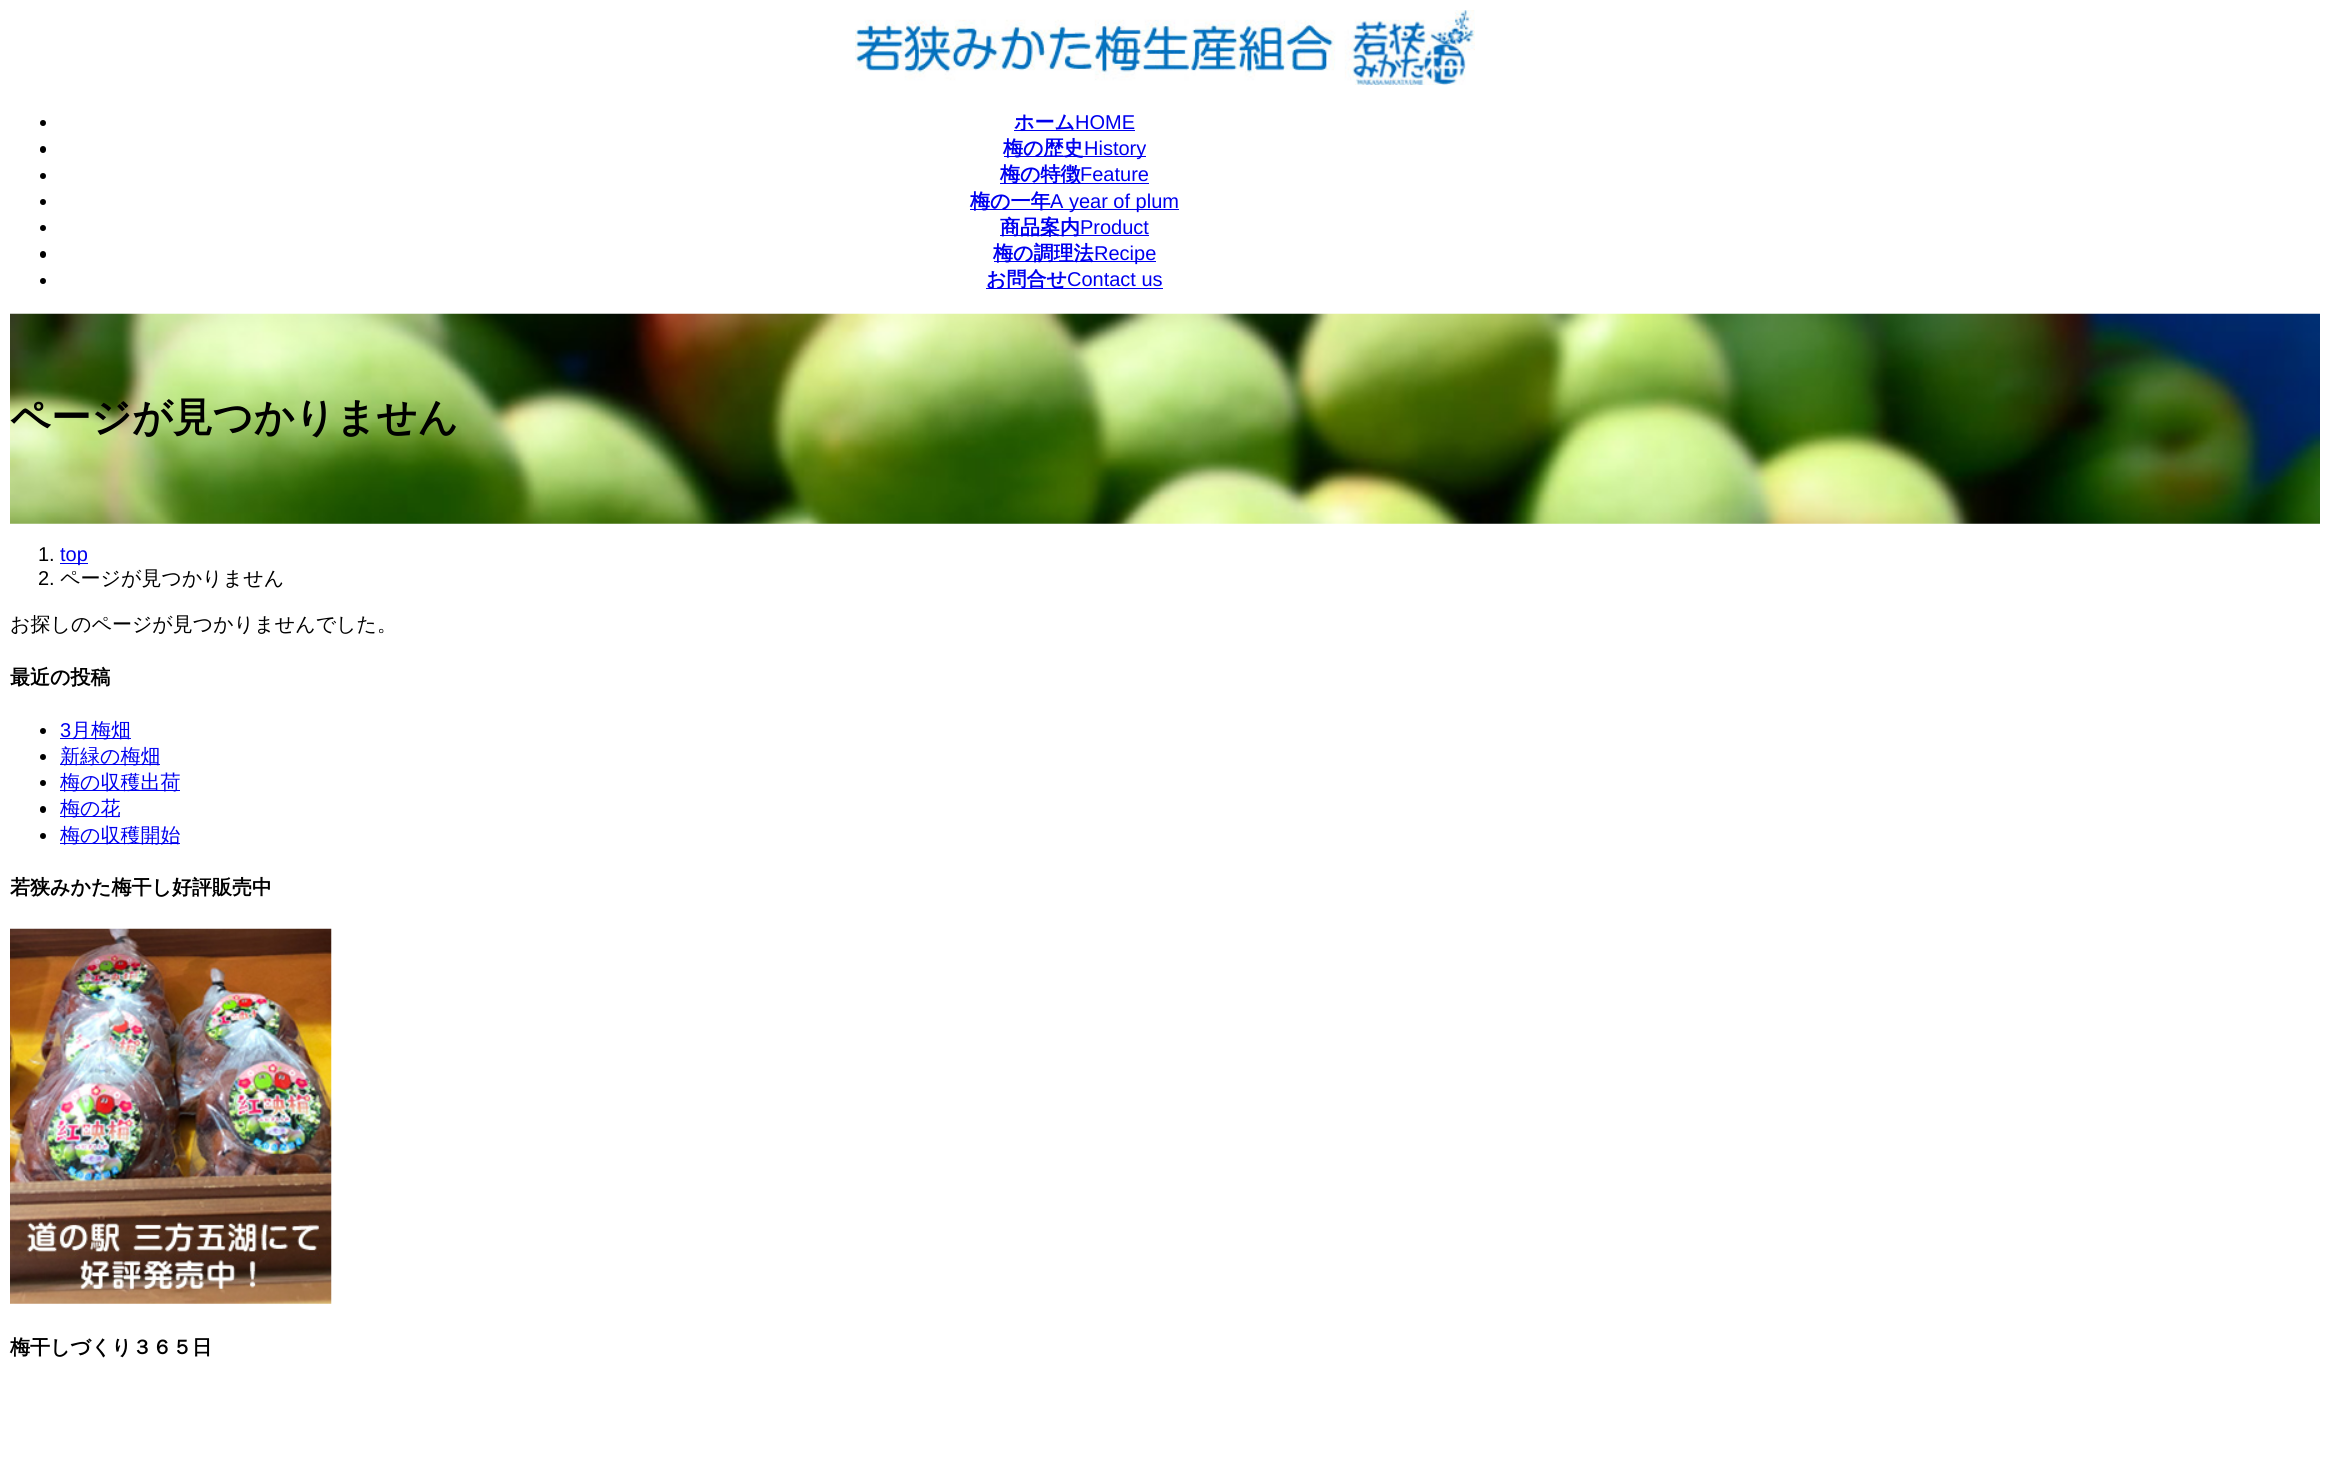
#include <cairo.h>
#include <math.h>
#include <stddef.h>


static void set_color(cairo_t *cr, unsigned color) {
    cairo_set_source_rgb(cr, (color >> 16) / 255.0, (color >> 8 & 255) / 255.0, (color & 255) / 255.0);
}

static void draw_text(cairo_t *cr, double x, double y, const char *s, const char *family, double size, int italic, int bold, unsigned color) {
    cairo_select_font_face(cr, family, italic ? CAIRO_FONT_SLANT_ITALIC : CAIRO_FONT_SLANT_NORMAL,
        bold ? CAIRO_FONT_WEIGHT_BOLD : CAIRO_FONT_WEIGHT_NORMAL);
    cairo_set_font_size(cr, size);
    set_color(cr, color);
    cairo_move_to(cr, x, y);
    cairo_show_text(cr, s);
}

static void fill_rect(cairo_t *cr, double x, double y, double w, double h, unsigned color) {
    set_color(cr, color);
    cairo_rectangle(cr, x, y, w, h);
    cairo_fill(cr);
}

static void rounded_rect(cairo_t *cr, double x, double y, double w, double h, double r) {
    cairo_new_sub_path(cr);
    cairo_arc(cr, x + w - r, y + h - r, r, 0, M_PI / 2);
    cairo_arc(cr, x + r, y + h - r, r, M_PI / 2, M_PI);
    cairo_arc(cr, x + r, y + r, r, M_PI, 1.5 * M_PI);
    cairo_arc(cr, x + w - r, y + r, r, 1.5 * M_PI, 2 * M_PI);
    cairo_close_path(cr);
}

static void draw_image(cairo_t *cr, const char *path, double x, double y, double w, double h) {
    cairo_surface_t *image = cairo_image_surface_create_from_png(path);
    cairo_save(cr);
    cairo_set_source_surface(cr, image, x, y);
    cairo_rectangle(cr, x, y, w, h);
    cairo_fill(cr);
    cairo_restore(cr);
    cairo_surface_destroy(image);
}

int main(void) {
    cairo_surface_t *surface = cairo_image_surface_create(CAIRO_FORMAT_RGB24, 2329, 1478);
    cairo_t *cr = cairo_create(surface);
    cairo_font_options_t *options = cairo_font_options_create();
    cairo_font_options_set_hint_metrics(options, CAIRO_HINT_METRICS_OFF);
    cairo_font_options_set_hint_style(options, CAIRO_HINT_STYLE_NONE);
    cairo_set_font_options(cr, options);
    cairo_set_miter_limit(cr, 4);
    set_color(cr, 0xFFFFFF);
    cairo_paint(cr);
    draw_image(cr, "assets/img1.png", 855, 10, 620, 75);
    set_color(cr, 0x000000);
    cairo_arc(cr, 43, 123, 3, 0, 2 * M_PI);
    cairo_fill(cr);
    fill_rect(cr, 1014, 130, 121, 1, 0x0000EE);
    draw_text(cr, 1014, 129, "ホーム", "WenQuanYi Zen Hei", 20, 0, 1, 0x0000EE);
    draw_text(cr, 1075, 129, "HOME", "Liberation Sans", 20, 0, 0, 0x0000EE);
    set_color(cr, 0x000000);
    rounded_rect(cr, 40, 146, 6, 7, 3);
    cairo_fill(cr);
    fill_rect(cr, 1004, 156, 142, 1, 0x0000EE);
    draw_text(cr, 1003, 155, "梅の歴史", "WenQuanYi Zen Hei", 20, 0, 1, 0x0000EE);
    draw_text(cr, 1084, 155, "History", "Liberation Sans", 20, 0, 0, 0x0000EE);
    set_color(cr, 0x000000);
    cairo_new_path(cr);
    cairo_arc(cr, 43, 176, 3, 0, 2 * M_PI);
    cairo_fill(cr);
    fill_rect(cr, 1000, 183, 149, 1, 0x0000EE);
    draw_text(cr, 1000, 181, "梅の特徴", "WenQuanYi Zen Hei", 20, 0, 1, 0x0000EE);
    draw_text(cr, 1080, 181, "Feature", "Liberation Sans", 20, 0, 0, 0x0000EE);
    set_color(cr, 0x000000);
    cairo_new_path(cr);
    cairo_arc(cr, 43, 202, 3, 0, 2 * M_PI);
    cairo_fill(cr);
    fill_rect(cr, 970, 209, 209, 1, 0x0000EE);
    draw_text(cr, 970, 208, "梅の一年", "WenQuanYi Zen Hei", 20, 0, 1, 0x0000EE);
    draw_text(cr, 1050, 208, "A year of plum", "Liberation Sans", 20, 0, 0, 0x0000EE);
    set_color(cr, 0x000000);
    cairo_new_path(cr);
    cairo_arc(cr, 43, 228, 3, 0, 2 * M_PI);
    cairo_fill(cr);
    fill_rect(cr, 1000, 235, 149, 1, 0x0000EE);
    draw_text(cr, 1000, 234, "商品案内", "WenQuanYi Zen Hei", 20, 0, 1, 0x0000EE);
    draw_text(cr, 1080, 234, "Product", "Liberation Sans", 20, 0, 0, 0x0000EE);
    set_color(cr, 0x000000);
    rounded_rect(cr, 40, 251, 6, 7, 3);
    cairo_fill(cr);
    fill_rect(cr, 994, 261, 162, 1, 0x0000EE);
    draw_text(cr, 993, 260, "梅の調理法", "WenQuanYi Zen Hei", 20, 0, 1, 0x0000EE);
    draw_text(cr, 1094, 260, "Recipe", "Liberation Sans", 20, 0, 0, 0x0000EE);
    set_color(cr, 0x000000);
    cairo_new_path(cr);
    cairo_arc(cr, 43, 281, 3, 0, 2 * M_PI);
    cairo_fill(cr);
    fill_rect(cr, 986, 288, 177, 1, 0x0000EE);
    draw_text(cr, 986, 286, "お問合せ", "WenQuanYi Zen Hei", 20, 0, 1, 0x0000EE);
    draw_text(cr, 1067, 286, "Contact us", "Liberation Sans", 20, 0, 0, 0x0000EE);
    draw_image(cr, "assets/img2.png", 10, 313, 2310, 211);
    draw_text(cr, 10, 431, "ページが見つかりません", "WenQuanYi Zen Hei", 40, 0, 1, 0x000000);
    draw_text(cr, 38, 561, "1.", "Liberation Sans", 20, 0, 0, 0x000000);
    fill_rect(cr, 60, 563, 28, 1, 0x0000EE);
    draw_text(cr, 60, 561, "top", "Liberation Sans", 20, 0, 0, 0x0000EE);
    draw_text(cr, 38, 585, "2.", "Liberation Sans", 20, 0, 0, 0x000000);
    draw_text(cr, 60, 585, "ページが見つかりません", "WenQuanYi Zen Hei Medium", 20, 0, 0, 0x000000);
    draw_text(cr, 10, 631, "お探しのページが見つかりませんでした。", "WenQuanYi Zen Hei Medium", 20, 0, 0, 0x000000);
    draw_text(cr, 10, 684, "最近の投稿", "WenQuanYi Zen Hei", 20, 0, 1, 0x000000);
    cairo_new_path(cr);
    cairo_arc(cr, 43, 731, 3, 0, 2 * M_PI);
    cairo_fill(cr);
    draw_text(cr, 60, 737, "3", "Liberation Sans", 20, 0, 0, 0x0000EE);
    fill_rect(cr, 60, 738, 71, 1, 0x0000EE);
    draw_text(cr, 71, 737, "月梅畑", "WenQuanYi Zen Hei Medium", 20, 0, 0, 0x0000EE);
    set_color(cr, 0x000000);
    cairo_new_path(cr);
    cairo_arc(cr, 43, 757, 3, 0, 2 * M_PI);
    cairo_fill(cr);
    fill_rect(cr, 60, 764, 100, 1, 0x0000EE);
    draw_text(cr, 60, 763, "新緑の梅畑", "WenQuanYi Zen Hei Medium", 20, 0, 0, 0x0000EE);
    set_color(cr, 0x000000);
    cairo_new_path(cr);
    cairo_arc(cr, 43, 783, 3, 0, 2 * M_PI);
    cairo_fill(cr);
    fill_rect(cr, 60, 790, 120, 1, 0x0000EE);
    draw_text(cr, 60, 789, "梅の収穫出荷", "WenQuanYi Zen Hei Medium", 20, 0, 0, 0x0000EE);
    set_color(cr, 0x000000);
    rounded_rect(cr, 40, 806, 6, 7, 3);
    cairo_fill(cr);
    fill_rect(cr, 60, 816, 60, 1, 0x0000EE);
    draw_text(cr, 60, 815, "梅の花", "WenQuanYi Zen Hei Medium", 20, 0, 0, 0x0000EE);
    set_color(cr, 0x000000);
    cairo_new_path(cr);
    cairo_arc(cr, 43, 836, 3, 0, 2 * M_PI);
    cairo_fill(cr);
    fill_rect(cr, 60, 843, 120, 1, 0x0000EE);
    draw_text(cr, 60, 842, "梅の収穫開始", "WenQuanYi Zen Hei Medium", 20, 0, 0, 0x0000EE);
    draw_text(cr, 10, 894, "若狭みかた梅干し好評販売中", "WenQuanYi Zen Hei", 20, 0, 1, 0x000000);
    draw_image(cr, "assets/img3.png", 10, 928, 322, 376);
    draw_text(cr, 10, 1354, "梅干しづくり３６５日", "WenQuanYi Zen Hei", 20, 0, 1, 0x000000);
    cairo_surface_write_to_png(surface, "output.png");
    cairo_font_options_destroy(options);
    cairo_destroy(cr);
    cairo_surface_destroy(surface);
    return 0;
}
